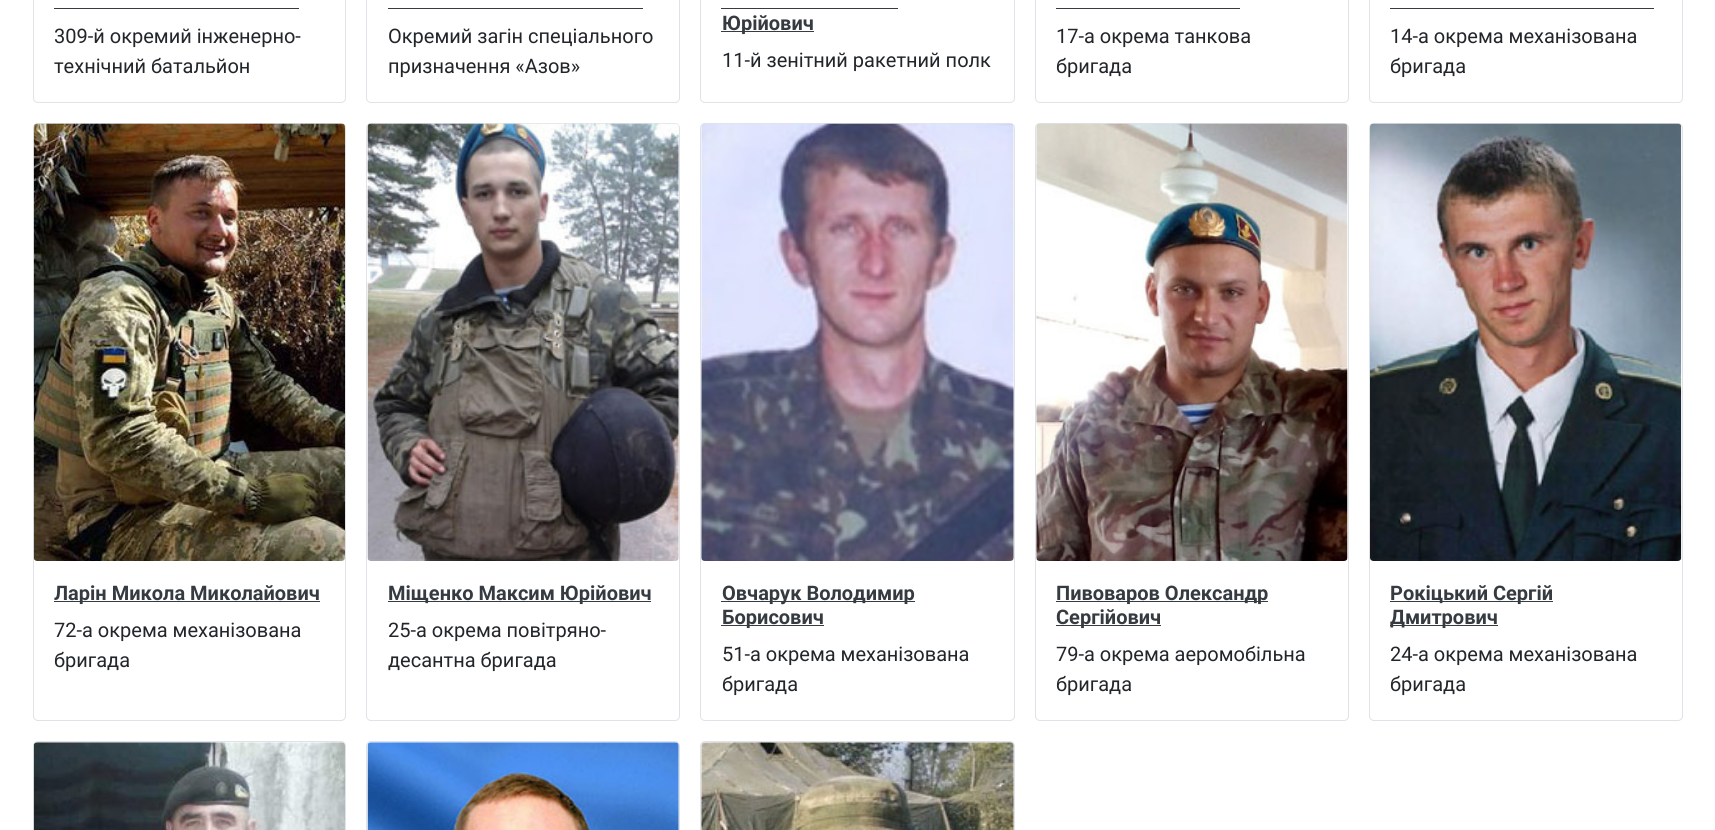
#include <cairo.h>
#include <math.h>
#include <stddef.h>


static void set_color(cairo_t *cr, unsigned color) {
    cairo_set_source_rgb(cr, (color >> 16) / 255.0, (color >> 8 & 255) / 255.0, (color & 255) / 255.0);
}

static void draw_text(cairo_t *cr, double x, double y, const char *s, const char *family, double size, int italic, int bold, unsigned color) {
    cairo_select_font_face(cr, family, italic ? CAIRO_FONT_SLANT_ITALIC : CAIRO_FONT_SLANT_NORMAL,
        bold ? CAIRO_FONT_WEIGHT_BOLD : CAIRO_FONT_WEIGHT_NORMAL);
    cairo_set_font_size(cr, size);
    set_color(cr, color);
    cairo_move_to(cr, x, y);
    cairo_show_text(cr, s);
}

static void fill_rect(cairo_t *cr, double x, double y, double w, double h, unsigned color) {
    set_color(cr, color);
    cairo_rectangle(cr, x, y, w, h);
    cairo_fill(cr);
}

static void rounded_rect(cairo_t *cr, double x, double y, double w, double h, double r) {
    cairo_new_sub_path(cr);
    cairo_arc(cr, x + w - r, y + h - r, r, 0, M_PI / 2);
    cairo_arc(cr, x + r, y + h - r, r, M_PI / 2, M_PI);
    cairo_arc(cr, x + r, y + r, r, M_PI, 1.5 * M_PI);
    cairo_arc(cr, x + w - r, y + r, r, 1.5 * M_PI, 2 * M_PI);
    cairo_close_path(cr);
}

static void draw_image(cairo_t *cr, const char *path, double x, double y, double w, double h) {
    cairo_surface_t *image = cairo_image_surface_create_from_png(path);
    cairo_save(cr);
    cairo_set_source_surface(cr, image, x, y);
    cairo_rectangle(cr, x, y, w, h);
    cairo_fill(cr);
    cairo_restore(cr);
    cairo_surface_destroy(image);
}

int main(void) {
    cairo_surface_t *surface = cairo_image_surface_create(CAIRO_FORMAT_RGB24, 1715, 830);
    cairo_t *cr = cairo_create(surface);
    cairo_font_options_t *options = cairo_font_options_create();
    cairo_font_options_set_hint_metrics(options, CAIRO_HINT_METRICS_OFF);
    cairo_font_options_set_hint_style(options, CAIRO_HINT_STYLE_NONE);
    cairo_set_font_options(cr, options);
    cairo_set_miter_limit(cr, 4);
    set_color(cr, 0xFFFFFF);
    cairo_paint(cr);
    rounded_rect(cr, 33.5, -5.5, 312, 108, 4.5);
    set_color(cr, 0xDFE3E7);
    cairo_set_line_width(cr, 1);
    cairo_stroke(cr);
    fill_rect(cr, 54, 8, 245, 1, 0x353B41);
    draw_text(cr, 54, 43, "309-й окремий інженерно-", "Roboto", 20, 0, 0, 0x22262A);
    draw_text(cr, 54, 73, "технічний батальйон", "Roboto", 20, 0, 0, 0x22262A);
    rounded_rect(cr, 366.5, -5.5, 313, 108, 4.5);
    set_color(cr, 0xDFE3E7);
    cairo_stroke(cr);
    fill_rect(cr, 388, 8, 255, 1, 0x353B41);
    draw_text(cr, 388, 43, "Окремий загін спеціального", "Roboto", 20, 0, 0, 0x22262A);
    draw_text(cr, 388, 73, "призначення «Азов»", "Roboto", 20, 0, 0, 0x22262A);
    rounded_rect(cr, 700.5, -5.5, 314, 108, 4.5);
    set_color(cr, 0xDFE3E7);
    cairo_stroke(cr);
    fill_rect(cr, 721, 31, 93, 1, 0x353B41);
    draw_text(cr, 722, 30, "Юрійович", "Roboto", 20, 0, 1, 0x353B41);
    fill_rect(cr, 721, 8, 177, 1, 0x353B41);
    draw_text(cr, 722, 67, "11-й зенітний ракетний полк", "Roboto", 20, 0, 0, 0x22262A);
    rounded_rect(cr, 1035.5, -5.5, 313, 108, 4.5);
    set_color(cr, 0xDFE3E7);
    cairo_stroke(cr);
    fill_rect(cr, 1056, 8, 184, 1, 0x353B41);
    draw_text(cr, 1056, 43, "17-а окрема танкова", "Roboto", 20, 0, 0, 0x22262A);
    draw_text(cr, 1056, 73, "бригада", "Roboto", 20, 0, 0, 0x22262A);
    rounded_rect(cr, 1369.5, -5.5, 313, 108, 4.5);
    set_color(cr, 0xDFE3E7);
    cairo_stroke(cr);
    fill_rect(cr, 1390, 8, 264, 1, 0x353B41);
    draw_text(cr, 1390, 43, "14-а окрема механізована", "Roboto", 20, 0, 0, 0x22262A);
    draw_text(cr, 1390, 73, "бригада", "Roboto", 20, 0, 0, 0x22262A);
    rounded_rect(cr, 33.5, 123.5, 312, 597, 4.5);
    set_color(cr, 0xDFE3E7);
    cairo_stroke(cr);
    draw_image(cr, "assets/img1.png", 33, 123, 312, 438);
    fill_rect(cr, 54, 601, 266, 1, 0x353B41);
    draw_text(cr, 54, 600, "Ларін Микола Миколайович", "Roboto", 20, 0, 1, 0x353B41);
    draw_text(cr, 54, 637, "72-а окрема механізована", "Roboto", 20, 0, 0, 0x22262A);
    draw_text(cr, 54, 667, "бригада", "Roboto", 20, 0, 0, 0x22262A);
    rounded_rect(cr, 366.5, 123.5, 313, 597, 4.5);
    set_color(cr, 0xDFE3E7);
    cairo_stroke(cr);
    draw_image(cr, "assets/img2.png", 367, 123, 312, 438);
    fill_rect(cr, 388, 601, 263, 1, 0x353B41);
    draw_text(cr, 388, 600, "Міщенко Максим Юрійович", "Roboto", 20, 0, 1, 0x353B41);
    draw_text(cr, 388, 637, "25-а окрема повітряно-", "Roboto", 20, 0, 0, 0x22262A);
    draw_text(cr, 388, 667, "десантна бригада", "Roboto", 20, 0, 0, 0x22262A);
    rounded_rect(cr, 700.5, 123.5, 314, 597, 4.5);
    set_color(cr, 0xDFE3E7);
    cairo_stroke(cr);
    draw_image(cr, "assets/img3.png", 701, 123, 313, 438);
    fill_rect(cr, 721, 601, 194, 1, 0x353B41);
    draw_text(cr, 722, 600, "Овчарук Володимир", "Roboto", 20, 0, 1, 0x353B41);
    fill_rect(cr, 721, 625, 103, 1, 0x353B41);
    draw_text(cr, 722, 624, "Борисович", "Roboto", 20, 0, 1, 0x353B41);
    draw_text(cr, 722, 661, "51-а окрема механізована", "Roboto", 20, 0, 0, 0x22262A);
    draw_text(cr, 722, 691, "бригада", "Roboto", 20, 0, 0, 0x22262A);
    rounded_rect(cr, 1035.5, 123.5, 313, 597, 4.5);
    set_color(cr, 0xDFE3E7);
    cairo_stroke(cr);
    draw_image(cr, "assets/img4.png", 1036, 123, 312, 438);
    fill_rect(cr, 1056, 601, 212, 1, 0x353B41);
    draw_text(cr, 1056, 600, "Пивоваров Олександр", "Roboto", 20, 0, 1, 0x353B41);
    fill_rect(cr, 1056, 625, 105, 1, 0x353B41);
    draw_text(cr, 1056, 624, "Сергійович", "Roboto", 20, 0, 1, 0x353B41);
    draw_text(cr, 1056, 661, "79-а окрема аеромобільна", "Roboto", 20, 0, 0, 0x22262A);
    draw_text(cr, 1056, 691, "бригада", "Roboto", 20, 0, 0, 0x22262A);
    rounded_rect(cr, 1369.5, 123.5, 313, 597, 4.5);
    set_color(cr, 0xDFE3E7);
    cairo_stroke(cr);
    draw_image(cr, "assets/img5.png", 1370, 123, 312, 438);
    fill_rect(cr, 1390, 601, 163, 1, 0x353B41);
    draw_text(cr, 1390, 600, "Рокіцький Сергій", "Roboto", 20, 0, 1, 0x353B41);
    fill_rect(cr, 1390, 625, 108, 1, 0x353B41);
    draw_text(cr, 1390, 624, "Дмитрович", "Roboto", 20, 0, 1, 0x353B41);
    draw_text(cr, 1390, 661, "24-а окрема механізована", "Roboto", 20, 0, 0, 0x22262A);
    draw_text(cr, 1390, 691, "бригада", "Roboto", 20, 0, 0, 0x22262A);
    rounded_rect(cr, 33.5, 741.5, 312, 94, 4.5);
    set_color(cr, 0xDFE3E7);
    cairo_stroke(cr);
    draw_image(cr, "assets/img6.png", 33, 742, 312, 88);
    rounded_rect(cr, 366.5, 741.5, 313, 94, 4.5);
    cairo_stroke(cr);
    draw_image(cr, "assets/img7.png", 367, 742, 312, 88);
    rounded_rect(cr, 700.5, 741.5, 314, 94, 4.5);
    cairo_stroke(cr);
    draw_image(cr, "assets/img8.png", 701, 742, 313, 88);
    cairo_surface_write_to_png(surface, "output.png");
    cairo_font_options_destroy(options);
    cairo_destroy(cr);
    cairo_surface_destroy(surface);
    return 0;
}
